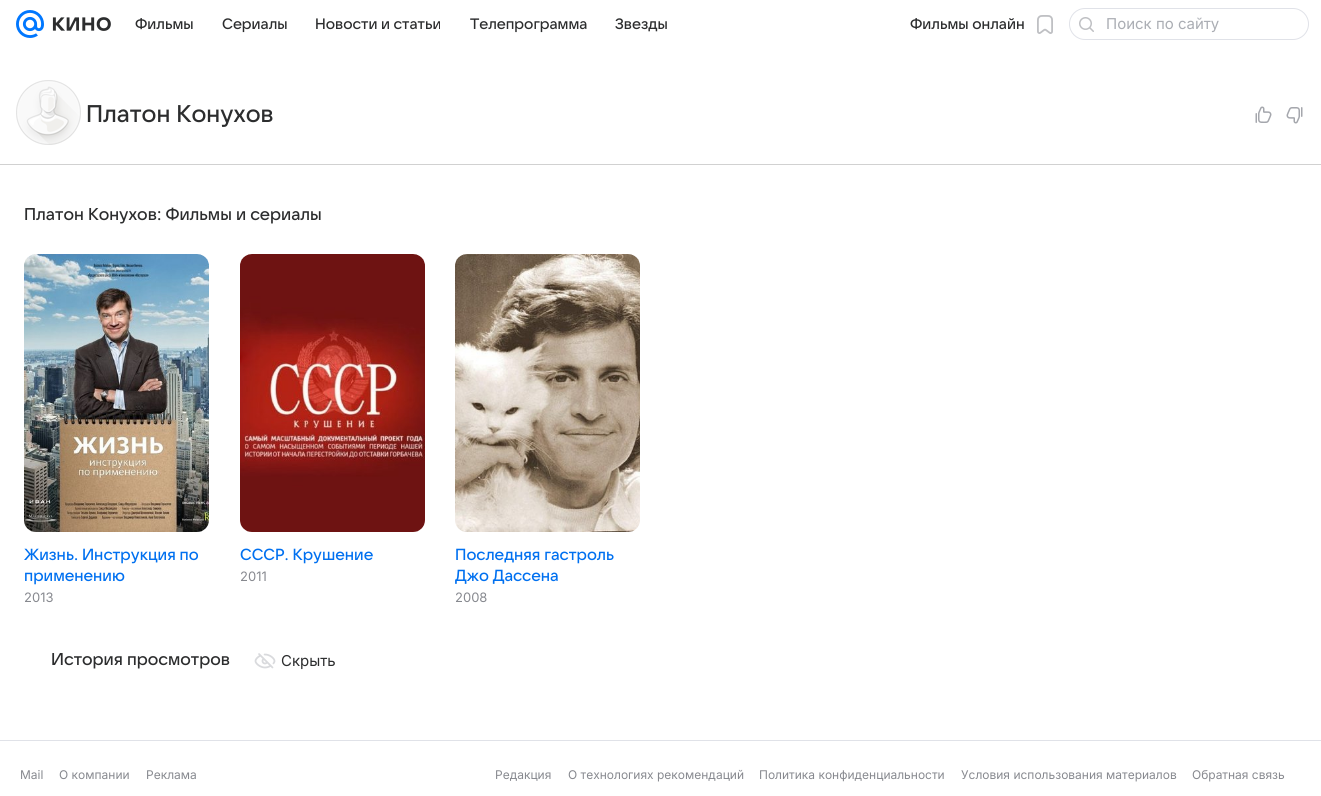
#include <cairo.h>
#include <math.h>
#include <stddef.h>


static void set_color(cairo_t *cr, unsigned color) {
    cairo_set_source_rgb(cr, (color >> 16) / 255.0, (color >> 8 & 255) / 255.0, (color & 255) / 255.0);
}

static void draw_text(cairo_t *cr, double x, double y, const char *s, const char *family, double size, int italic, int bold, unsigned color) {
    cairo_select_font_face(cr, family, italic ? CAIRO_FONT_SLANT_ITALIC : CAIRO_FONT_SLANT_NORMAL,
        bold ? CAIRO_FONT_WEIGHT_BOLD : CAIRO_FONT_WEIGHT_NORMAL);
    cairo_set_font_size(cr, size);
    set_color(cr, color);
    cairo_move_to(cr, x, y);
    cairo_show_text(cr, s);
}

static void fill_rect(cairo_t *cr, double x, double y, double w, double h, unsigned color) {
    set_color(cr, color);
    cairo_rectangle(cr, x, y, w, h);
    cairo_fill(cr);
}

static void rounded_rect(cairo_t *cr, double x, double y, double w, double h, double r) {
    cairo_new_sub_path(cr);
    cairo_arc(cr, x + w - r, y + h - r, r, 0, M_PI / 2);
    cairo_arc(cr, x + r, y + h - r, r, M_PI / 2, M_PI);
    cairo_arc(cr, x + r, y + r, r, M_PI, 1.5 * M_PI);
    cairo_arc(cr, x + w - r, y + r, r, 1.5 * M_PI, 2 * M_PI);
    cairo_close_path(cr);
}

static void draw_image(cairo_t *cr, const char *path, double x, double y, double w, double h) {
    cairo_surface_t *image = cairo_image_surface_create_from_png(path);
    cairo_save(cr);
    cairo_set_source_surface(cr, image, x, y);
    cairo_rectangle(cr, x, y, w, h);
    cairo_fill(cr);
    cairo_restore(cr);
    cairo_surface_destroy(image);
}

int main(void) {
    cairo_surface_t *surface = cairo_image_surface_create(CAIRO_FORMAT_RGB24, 1321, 796);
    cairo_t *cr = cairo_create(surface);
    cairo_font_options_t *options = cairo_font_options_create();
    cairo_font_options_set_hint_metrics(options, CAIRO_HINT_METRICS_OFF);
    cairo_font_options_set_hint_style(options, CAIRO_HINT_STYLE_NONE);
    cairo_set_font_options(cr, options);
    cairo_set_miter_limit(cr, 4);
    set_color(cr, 0xFFFFFF);
    cairo_paint(cr);
    draw_image(cr, "assets/img1.png", 16, 10, 28, 28);
    draw_image(cr, "assets/img2.png", 52, 17, 59, 14);
    draw_text(cr, 135, 29, "Фильмы", "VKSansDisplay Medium", 15, 0, 0, 0x2C2D2E);
    draw_text(cr, 222, 29, "Сериалы", "VKSansDisplay Medium", 15, 0, 0, 0x2C2D2E);
    draw_text(cr, 315, 29, "Новости и статьи", "VKSansDisplay Medium", 15, 0, 0, 0x2C2D2E);
    draw_text(cr, 470, 29, "Телепрограмма", "VKSansDisplay Medium", 15, 0, 0, 0x2C2D2E);
    draw_text(cr, 615, 29, "Звезды", "VKSansDisplay Medium", 15, 0, 0, 0x2C2D2E);
    draw_text(cr, 910, 29, "Фильмы онлайн", "VKSansDisplay Medium", 15, 0, 0, 0x2C2D2E);
    draw_image(cr, "assets/img3.png", 1037, 15, 16, 19);
    rounded_rect(cr, 1069.5, 8.5, 239, 31, 15.5);
    set_color(cr, 0xE0E2E8);
    cairo_set_line_width(cr, 1);
    cairo_stroke(cr);
    draw_image(cr, "assets/img4.png", 1079, 17, 15, 15);
    draw_text(cr, 1106, 29, "Поиск по сайту", "Inter", 15, 0, 0, 0xAAADB3);
    fill_rect(cr, 0, 164, 1321, 1, 0xD1D1D1);
    draw_image(cr, "assets/img5.png", 16, 80, 65, 65);
    draw_text(cr, 86, 122, "Платон Конухов", "VKSansDisplay Medium", 24, 0, 0, 0x2C2D2E);
    draw_image(cr, "assets/img6.png", 1255, 106, 17, 17);
    draw_image(cr, "assets/img7.png", 1286, 107, 17, 17);
    draw_text(cr, 24, 220, "Платон Конухов: Фильмы и сериалы", "VKSansDisplay Medium", 17, 0, 0, 0x2C2D2E);
    draw_image(cr, "assets/img8.png", 24, 254, 185, 278);
    draw_text(cr, 24, 560, "Жизнь. Инструкция по", "VKSansDisplay Medium", 16, 0, 0, 0x0070F0);
    draw_text(cr, 24, 581, "применению", "VKSansDisplay Medium", 16, 0, 0, 0x0070F0);
    draw_text(cr, 24, 602, "2013", "Inter", 13, 0, 0, 0x87898F);
    draw_image(cr, "assets/img9.png", 240, 254, 185, 278);
    draw_text(cr, 240, 560, "СССР. Крушение", "VKSansDisplay Medium", 16, 0, 0, 0x0070F0);
    draw_text(cr, 240, 581, "2011", "Inter", 13, 0, 0, 0x87898F);
    draw_image(cr, "assets/img10.png", 455, 254, 185, 278);
    draw_text(cr, 455, 560, "Последняя гастроль", "VKSansDisplay Medium", 16, 0, 0, 0x0070F0);
    draw_text(cr, 455, 581, "Джо Дассена", "VKSansDisplay Medium", 16, 0, 0, 0x0070F0);
    draw_text(cr, 455, 602, "2008", "Inter", 13, 0, 0, 0x87898F);
    draw_text(cr, 51, 665, "История просмотров", "VKSansDisplay Medium", 17, 0, 0, 0x2C2D2E);
    draw_image(cr, "assets/img11.png", 254, 653, 22, 16);
    draw_text(cr, 281, 666, "Скрыть", "Inter", 15, 0, 0, 0x2C2D2E);
    fill_rect(cr, 0, 740, 1321, 1, 0xE0E2E8);
    draw_text(cr, 20, 779, "Mail", "Inter", 12, 0, 0, 0x87898F);
    draw_text(cr, 59, 779, "О компании", "Inter", 12, 0, 0, 0x87898F);
    draw_text(cr, 146, 779, "Реклама", "Inter", 12, 0, 0, 0x87898F);
    draw_text(cr, 495, 779, "Редакция", "Inter", 12, 0, 0, 0x87898F);
    draw_text(cr, 568, 779, "О технологиях рекомендаций", "Inter", 12, 0, 0, 0x87898F);
    draw_text(cr, 759, 779, "Политика конфиденциальности", "Inter", 12, 0, 0, 0x87898F);
    draw_text(cr, 961, 779, "Условия использования материалов", "Inter", 12, 0, 0, 0x87898F);
    draw_text(cr, 1192, 779, "Обратная связь", "Inter", 12, 0, 0, 0x87898F);
    cairo_surface_write_to_png(surface, "output.png");
    cairo_font_options_destroy(options);
    cairo_destroy(cr);
    cairo_surface_destroy(surface);
    return 0;
}
